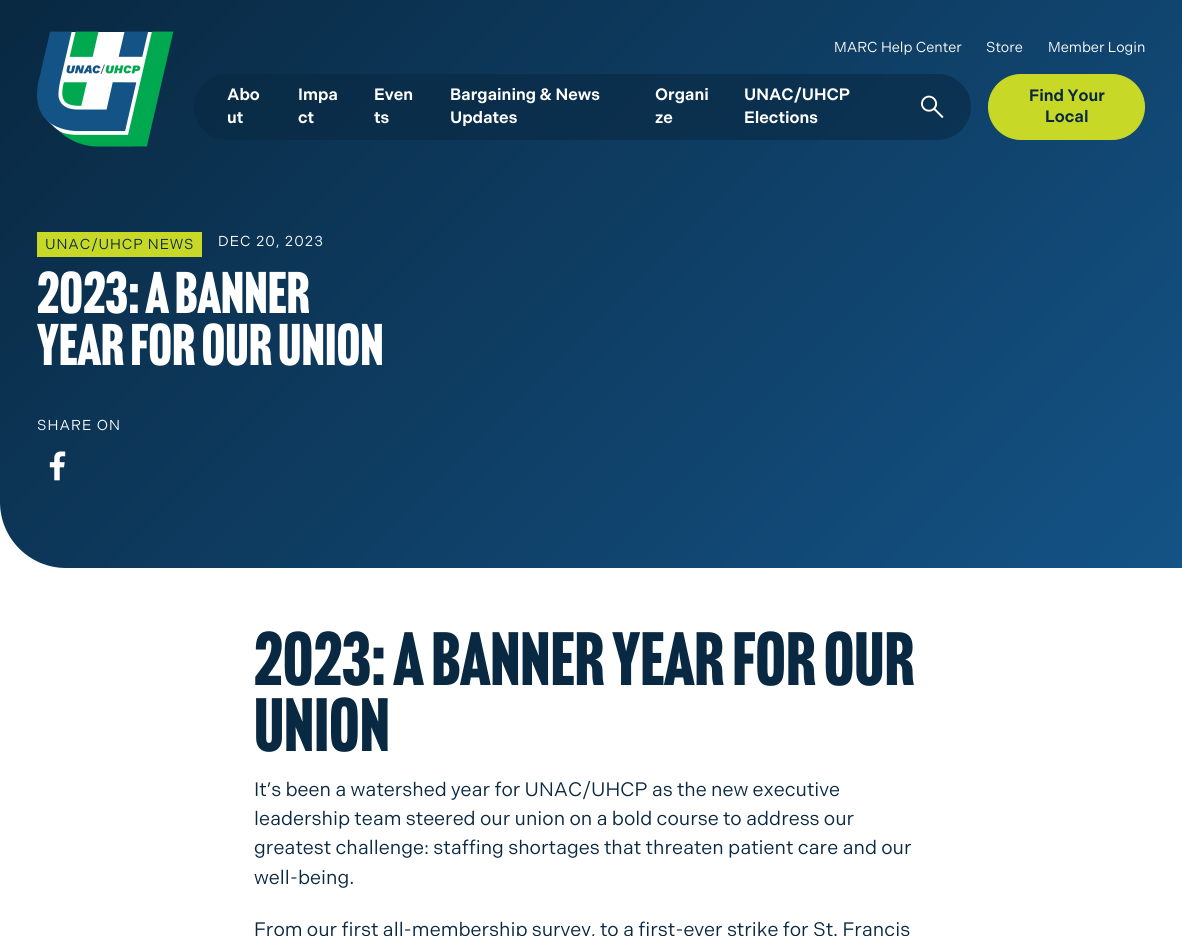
#include <cairo.h>
#include <math.h>
#include <stddef.h>


static void set_color(cairo_t *cr, unsigned color) {
    cairo_set_source_rgb(cr, (color >> 16) / 255.0, (color >> 8 & 255) / 255.0, (color & 255) / 255.0);
}

static void draw_text(cairo_t *cr, double x, double y, const char *s, const char *family, double size, int italic, int bold, unsigned color) {
    cairo_select_font_face(cr, family, italic ? CAIRO_FONT_SLANT_ITALIC : CAIRO_FONT_SLANT_NORMAL,
        bold ? CAIRO_FONT_WEIGHT_BOLD : CAIRO_FONT_WEIGHT_NORMAL);
    cairo_set_font_size(cr, size);
    set_color(cr, color);
    cairo_move_to(cr, x, y);
    cairo_show_text(cr, s);
}

static void draw_spaced(cairo_t *cr, double x, double y, const char *s, double letter, double word) {
    cairo_move_to(cr, x, y);
    while (*s) {
        char ch[5] = {0};
        int n = 0;
        do ch[n++] = *s++; while ((*s & 0xC0) == 0x80);
        cairo_show_text(cr, ch);
        cairo_rel_move_to(cr, letter + word * (*ch == ' '), 0);
    }
}

static void fill_rect(cairo_t *cr, double x, double y, double w, double h, unsigned color) {
    set_color(cr, color);
    cairo_rectangle(cr, x, y, w, h);
    cairo_fill(cr);
}

static void rounded_rect(cairo_t *cr, double x, double y, double w, double h, double r) {
    cairo_new_sub_path(cr);
    cairo_arc(cr, x + w - r, y + h - r, r, 0, M_PI / 2);
    cairo_arc(cr, x + r, y + h - r, r, M_PI / 2, M_PI);
    cairo_arc(cr, x + r, y + r, r, M_PI, 1.5 * M_PI);
    cairo_arc(cr, x + w - r, y + r, r, 1.5 * M_PI, 2 * M_PI);
    cairo_close_path(cr);
}

static void draw_image(cairo_t *cr, const char *path, double x, double y, double w, double h) {
    cairo_surface_t *image = cairo_image_surface_create_from_png(path);
    cairo_save(cr);
    cairo_set_source_surface(cr, image, x, y);
    cairo_rectangle(cr, x, y, w, h);
    cairo_fill(cr);
    cairo_restore(cr);
    cairo_surface_destroy(image);
}

int main(void) {
    cairo_surface_t *surface = cairo_image_surface_create(CAIRO_FORMAT_RGB24, 1182, 936);
    cairo_t *cr = cairo_create(surface);
    cairo_font_options_t *options = cairo_font_options_create();
    cairo_font_options_set_hint_metrics(options, CAIRO_HINT_METRICS_OFF);
    cairo_font_options_set_hint_style(options, CAIRO_HINT_STYLE_NONE);
    cairo_set_font_options(cr, options);
    cairo_set_miter_limit(cr, 4);
    cairo_pattern_t *gradient;
    set_color(cr, 0xFFFFFF);
    cairo_paint(cr);
    gradient = cairo_pattern_create_linear(154, -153, 1029, 722);
    cairo_pattern_add_color_stop_rgba(gradient, 0, 0.035, 0.157, 0.255, 1);
    cairo_pattern_add_color_stop_rgba(gradient, 1, 0.078, 0.325, 0.525, 1);
    cairo_set_source(cr, gradient);
    cairo_pattern_destroy(gradient);
    cairo_new_path(cr);
    cairo_move_to(cr, 0, 0);
    cairo_line_to(cr, 1182, 0);
    cairo_line_to(cr, 1182, 568);
    cairo_line_to(cr, 66, 568);
    cairo_curve_to(cr, 29.5, 568, 0, 538.5, 0, 502);
    cairo_close_path(cr);
    cairo_fill(cr);
    set_color(cr, 0xFFFFFF);
    cairo_new_path(cr);
    cairo_move_to(cr, 136, 136);
    cairo_line_to(cr, 135, 137);
    cairo_curve_to(cr, 125, 142, 97, 142, 86, 141);
    cairo_line_to(cr, 76, 139);
    cairo_curve_to(cr, 67, 136, 59, 132, 52, 125);
    cairo_curve_to(cr, 43, 117, 38, 105, 38, 92);
    cairo_line_to(cr, 38, 88);
    cairo_line_to(cr, 51, 32);
    cairo_line_to(cr, 156, 32);
    cairo_close_path(cr);
    cairo_fill(cr);
    draw_image(cr, "assets/img1.png", 37, 31, 111, 101);
    draw_image(cr, "assets/img2.png", 60, 31, 114, 116);
    set_color(cr, 0x56575B);
    cairo_new_path(cr);
    cairo_move_to(cr, 101.5, 74);
    cairo_line_to(cr, 100.5, 74);
    cairo_line_to(cr, 104, 64.5);
    cairo_line_to(cr, 105, 64.5);
    cairo_close_path(cr);
    cairo_fill(cr);
    draw_text(cr, 834, 52, "MARC Help Center", "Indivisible", 14.4, 0, 0, 0xFFFFFF);
    draw_text(cr, 986, 52, "Store", "Indivisible", 14.4, 0, 0, 0xFFFFFF);
    draw_text(cr, 1048, 52, "Member Login", "Indivisible", 14.4, 0, 0, 0xFFFFFF);
    cairo_set_source_rgba(cr, 0.035, 0.157, 0.255, 0.6);
    rounded_rect(cr, 194, 74, 777, 66, 33);
    cairo_fill(cr);
    draw_text(cr, 227, 100, "Abo", "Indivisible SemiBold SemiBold", 16.5, 0, 0, 0xFFFFFF);
    draw_text(cr, 227, 123, "ut", "Indivisible SemiBold SemiBold", 16.5, 0, 0, 0xFFFFFF);
    draw_text(cr, 298, 100, "Impa", "Indivisible SemiBold SemiBold", 16.5, 0, 0, 0xFFFFFF);
    draw_text(cr, 298, 123, "ct", "Indivisible SemiBold SemiBold", 16.5, 0, 0, 0xFFFFFF);
    draw_text(cr, 374, 100, "Even", "Indivisible SemiBold SemiBold", 16.5, 0, 0, 0xFFFFFF);
    draw_text(cr, 374, 123, "ts", "Indivisible SemiBold SemiBold", 16.5, 0, 0, 0xFFFFFF);
    draw_text(cr, 450, 100, "Bargaining & News", "Indivisible SemiBold SemiBold", 16.5, 0, 0, 0xFFFFFF);
    draw_text(cr, 450, 123, "Updates", "Indivisible SemiBold SemiBold", 16.5, 0, 0, 0xFFFFFF);
    draw_text(cr, 655, 100, "Organi", "Indivisible SemiBold SemiBold", 16.5, 0, 0, 0xFFFFFF);
    draw_text(cr, 655, 123, "ze", "Indivisible SemiBold SemiBold", 16.5, 0, 0, 0xFFFFFF);
    draw_text(cr, 744, 100, "UNAC/UHCP", "Indivisible SemiBold SemiBold", 16.5, 0, 0, 0xFFFFFF);
    draw_text(cr, 744, 123, "Elections", "Indivisible SemiBold SemiBold", 16.5, 0, 0, 0xFFFFFF);
    draw_image(cr, "assets/img3.png", 921, 95, 23, 23);
    set_color(cr, 0xC7D827);
    rounded_rect(cr, 988.5, 74.5, 156, 65, 32.5);
    cairo_fill_preserve(cr);
    cairo_set_line_width(cr, 1);
    cairo_stroke(cr);
    draw_text(cr, 1029, 101, "Find Your", "Indivisible SemiBold SemiBold", 16.5, 0, 0, 0x092841);
    draw_text(cr, 1045, 122, "Local", "Indivisible SemiBold SemiBold", 16.5, 0, 0, 0x092841);
    fill_rect(cr, 37, 232, 165, 25, 0xC7D827);
    cairo_select_font_face(cr, "Indivisible", CAIRO_FONT_SLANT_NORMAL, CAIRO_FONT_WEIGHT_NORMAL);
    cairo_set_font_size(cr, 14.4);
    set_color(cr, 0x092841);
    draw_spaced(cr, 45, 249, "UNAC/UHCP NEWS", 0.9, 0);
    set_color(cr, 0xFFFFFF);
    draw_spaced(cr, 218, 246, "DEC 20, 2023", 1.1, 0);
    draw_text(cr, 37, 313, "2023: A Banner", "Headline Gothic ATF", 57.5, 0, 0, 0xFFFFFF);
    draw_text(cr, 37, 365, "Year for Our Union", "Headline Gothic ATF", 57.5, 0, 0, 0xFFFFFF);
    cairo_select_font_face(cr, "Indivisible", CAIRO_FONT_SLANT_NORMAL, CAIRO_FONT_WEIGHT_NORMAL);
    cairo_set_font_size(cr, 14.4);
    draw_spaced(cr, 37, 430, "SHARE ON", 1.1, 0);
    draw_image(cr, "assets/img4.png", 49, 451, 17, 30);
    draw_text(cr, 254, 685, "2023: A Banner Year for Our", "Headline Gothic ATF", 73.9, 0, 0, 0x092841);
    draw_text(cr, 254, 751, "Union", "Headline Gothic ATF", 73.9, 0, 0, 0x092841);
    draw_text(cr, 254, 796, "It’s been a watershed year for UNAC/UHCP as the new executive", "Indivisible", 19.5, 0, 0, 0x092841);
    draw_text(cr, 254, 825, "leadership team steered our union on a bold course to address our", "Indivisible", 19.5, 0, 0, 0x092841);
    draw_text(cr, 254, 854, "greatest challenge: staffing shortages that threaten patient care and our", "Indivisible", 19.5, 0, 0, 0x092841);
    draw_text(cr, 254, 884, "well-being.", "Indivisible", 19.5, 0, 0, 0x092841);
    draw_text(cr, 254, 936, "From our first all-membership survey, to a first-ever strike for St. Francis", "Indivisible", 19.5, 0, 0, 0x092841);
    cairo_surface_write_to_png(surface, "output.png");
    cairo_font_options_destroy(options);
    cairo_destroy(cr);
    cairo_surface_destroy(surface);
    return 0;
}
